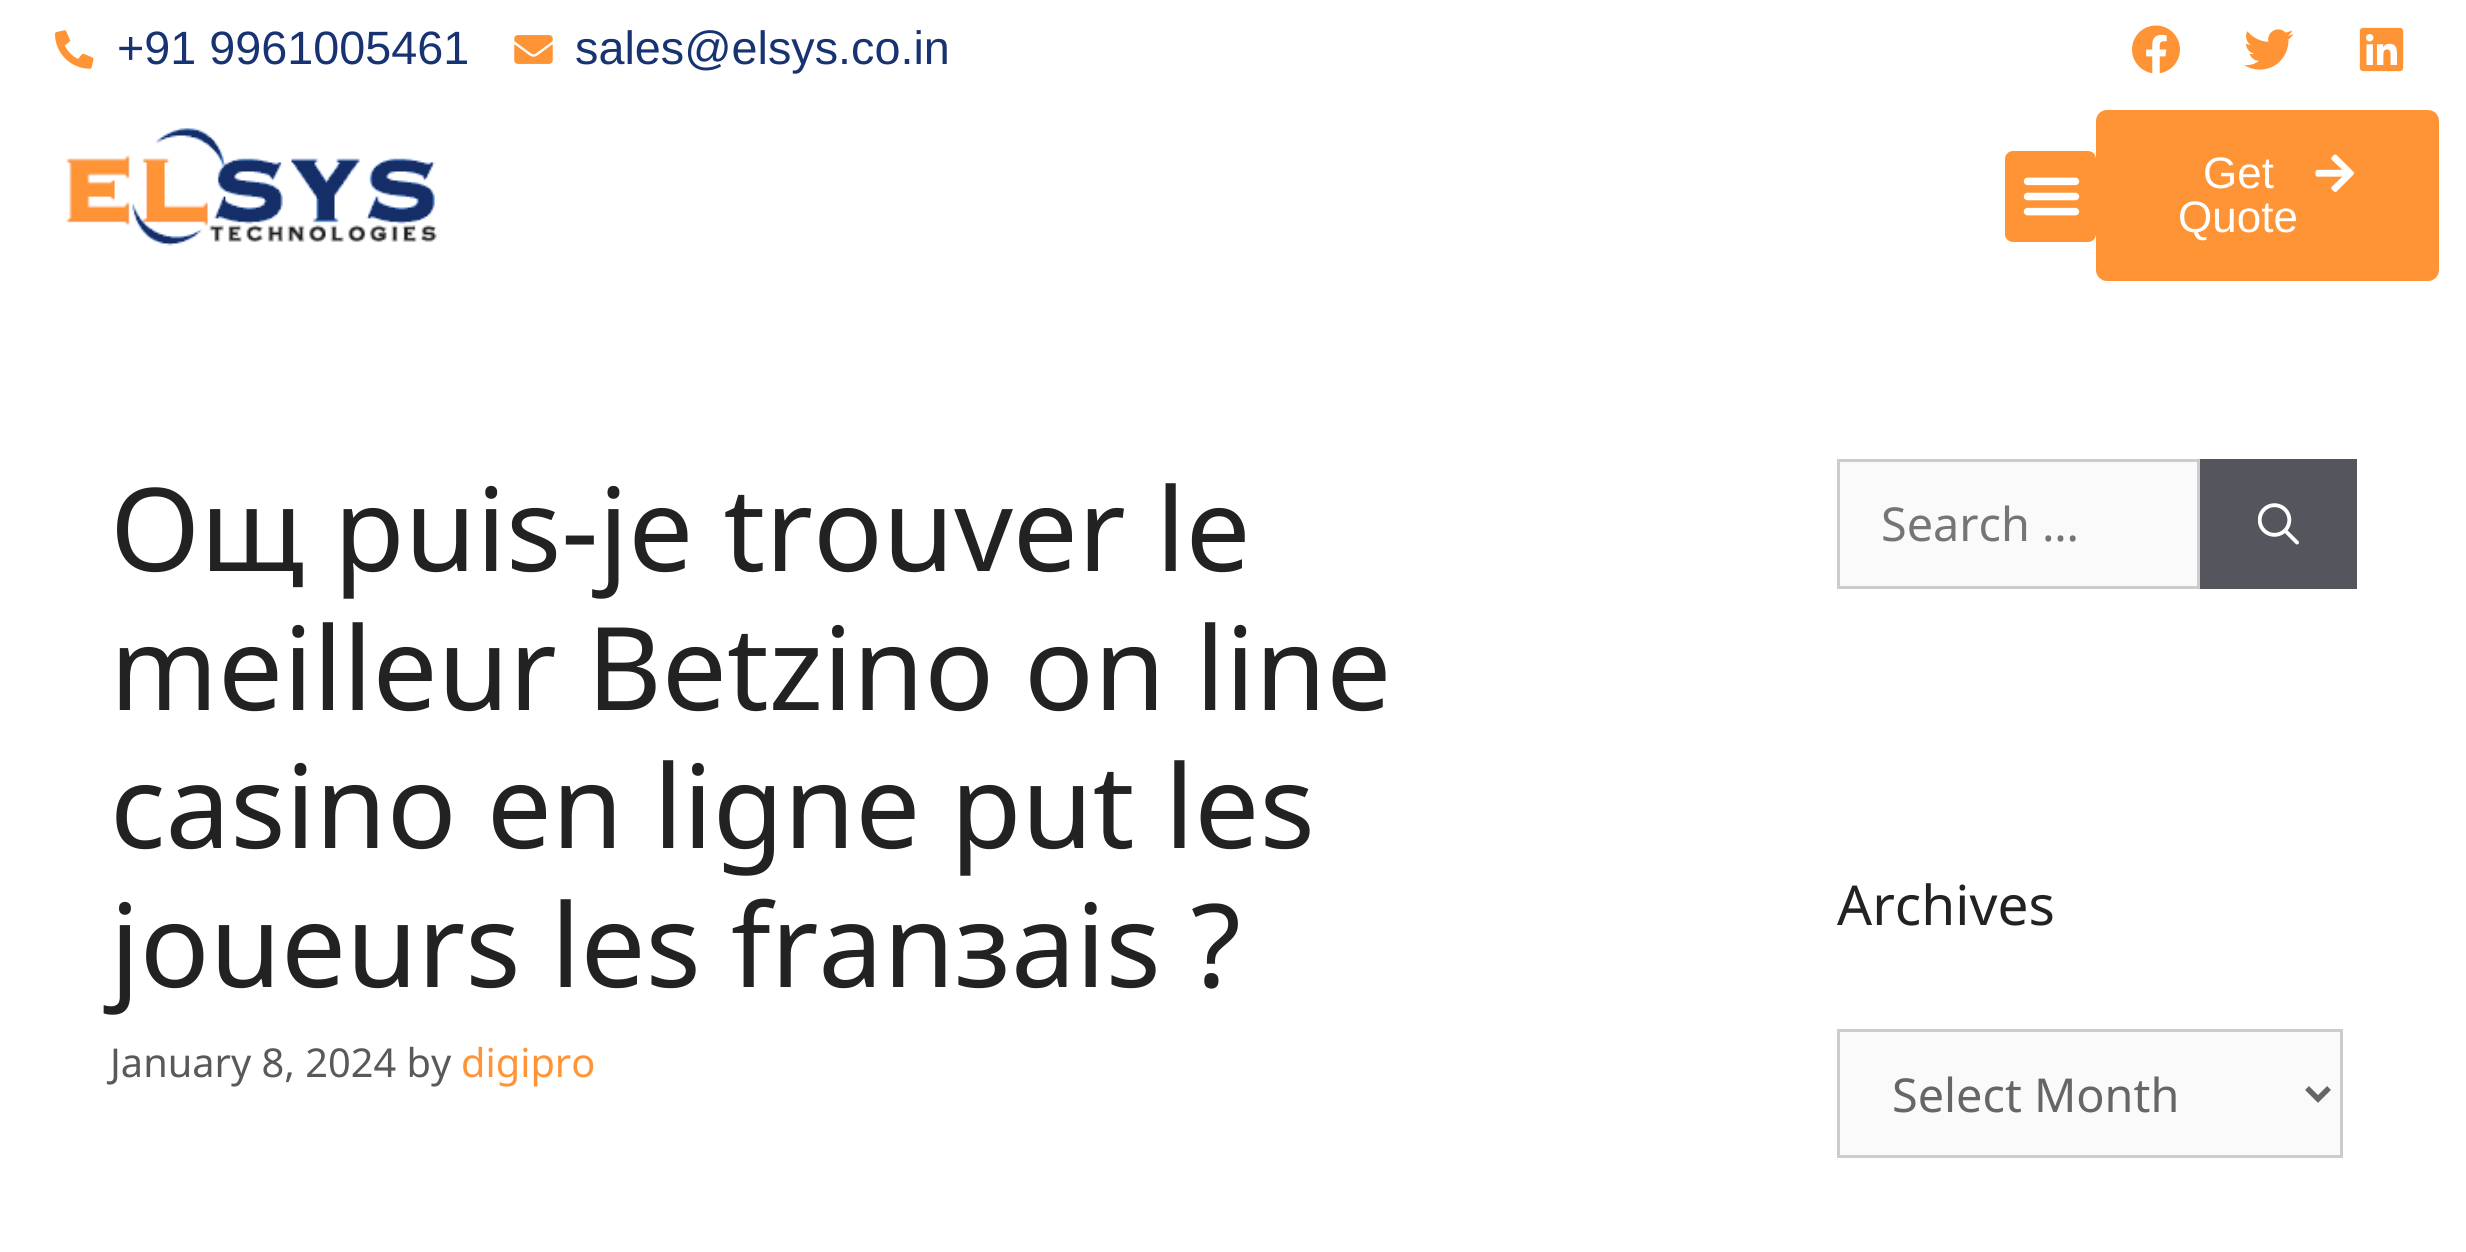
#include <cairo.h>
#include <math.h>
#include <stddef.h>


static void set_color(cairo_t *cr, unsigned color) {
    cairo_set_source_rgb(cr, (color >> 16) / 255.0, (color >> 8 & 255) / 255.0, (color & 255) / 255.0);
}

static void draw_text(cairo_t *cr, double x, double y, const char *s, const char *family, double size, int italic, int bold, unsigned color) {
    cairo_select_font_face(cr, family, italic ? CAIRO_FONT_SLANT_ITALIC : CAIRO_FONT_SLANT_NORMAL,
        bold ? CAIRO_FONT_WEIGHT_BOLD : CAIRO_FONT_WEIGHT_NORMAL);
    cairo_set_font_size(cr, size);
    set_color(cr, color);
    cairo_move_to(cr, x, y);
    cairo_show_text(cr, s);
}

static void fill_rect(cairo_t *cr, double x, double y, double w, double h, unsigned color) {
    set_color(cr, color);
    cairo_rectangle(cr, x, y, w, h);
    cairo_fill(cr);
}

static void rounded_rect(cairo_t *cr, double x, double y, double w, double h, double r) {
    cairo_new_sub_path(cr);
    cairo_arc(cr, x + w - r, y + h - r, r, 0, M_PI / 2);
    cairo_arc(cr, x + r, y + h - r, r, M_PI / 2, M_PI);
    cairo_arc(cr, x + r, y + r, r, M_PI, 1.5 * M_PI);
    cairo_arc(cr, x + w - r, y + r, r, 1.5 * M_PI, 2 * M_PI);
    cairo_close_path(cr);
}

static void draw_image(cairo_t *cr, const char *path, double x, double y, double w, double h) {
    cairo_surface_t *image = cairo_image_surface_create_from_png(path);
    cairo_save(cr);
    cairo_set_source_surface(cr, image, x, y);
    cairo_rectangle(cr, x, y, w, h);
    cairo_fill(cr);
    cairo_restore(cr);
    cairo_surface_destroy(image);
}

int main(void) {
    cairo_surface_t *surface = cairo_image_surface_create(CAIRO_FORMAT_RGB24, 2466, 1252);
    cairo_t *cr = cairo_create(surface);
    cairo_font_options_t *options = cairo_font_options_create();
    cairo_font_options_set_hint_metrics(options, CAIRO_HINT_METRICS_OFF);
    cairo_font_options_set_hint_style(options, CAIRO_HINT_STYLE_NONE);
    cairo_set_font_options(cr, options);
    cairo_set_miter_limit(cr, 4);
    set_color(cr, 0xFFFFFF);
    cairo_paint(cr);
    draw_image(cr, "assets/img1.png", 55, 30, 39, 39);
    draw_text(cr, 117, 64, "+91 9961005461", "Liberation Sans", 46.75, 0, 0, 0x183372);
    draw_image(cr, "assets/img2.png", 514, 35, 39, 29);
    draw_text(cr, 575, 64, "sales@elsys.co.in", "Liberation Sans", 46.75, 0, 0, 0x183372);
    draw_image(cr, "assets/img3.png", 2132, 25, 48, 49);
    draw_image(cr, "assets/img4.png", 2244, 29, 50, 41);
    draw_image(cr, "assets/img5.png", 2359, 27, 45, 45);
    draw_image(cr, "assets/img6.png", 66, 128, 371, 118);
    set_color(cr, 0xFE9435);
    rounded_rect(cr, 2005, 151, 91, 91, 8);
    cairo_fill(cr);
    draw_image(cr, "assets/img7.png", 2023, 177, 57, 39);
    rounded_rect(cr, 2096, 110, 343, 171, 11);
    cairo_fill(cr);
    draw_text(cr, 2203, 188, "Get", "Liberation Sans", 44, 0, 0, 0xFFFFFF);
    draw_text(cr, 2178, 232, "Quote", "Liberation Sans", 44, 0, 0, 0xFFFFFF);
    draw_image(cr, "assets/img8.png", 2315, 154, 39, 38);
    draw_text(cr, 110, 571, "Oщ puis-je trouver le", "Noto Sans", 115.5, 0, 0, 0x222222);
    draw_text(cr, 110, 710, "meilleur Betzino on line", "Noto Sans", 115.5, 0, 0, 0x222222);
    draw_text(cr, 110, 848, "casino en ligne put les", "Noto Sans", 115.5, 0, 0, 0x222222);
    draw_text(cr, 110, 987, "joueurs les franзais ?", "Noto Sans", 115.5, 0, 0, 0x222222);
    draw_text(cr, 110, 1077, "January 8, 2024 by", "Noto Sans", 39.75, 0, 0, 0x595959);
    draw_text(cr, 461, 1077, "digipro", "Noto Sans", 39.75, 0, 0, 0xFE9435);
    set_color(cr, 0xFAFAFA);
    cairo_rectangle(cr, 1838.5, 460.5, 360, 127);
    cairo_fill_preserve(cr);
    set_color(cr, 0xCCCCCC);
    cairo_set_line_width(cr, 3);
    cairo_stroke(cr);
    draw_text(cr, 1881, 541, "Search …", "Noto Sans", 46.75, 0, 0, 0x757575);
    fill_rect(cr, 2200, 459, 157, 130, 0x55555E);
    draw_image(cr, "assets/img9.png", 2258, 503, 41, 42);
    draw_text(cr, 1837, 925, "Archives", "Noto Sans", 55, 0, 0, 0x222222);
    set_color(cr, 0xFAFAFA);
    cairo_rectangle(cr, 1838.5, 1030.5, 503, 126);
    cairo_fill_preserve(cr);
    set_color(cr, 0xCCCCCC);
    cairo_stroke(cr);
    cairo_new_path(cr);
    cairo_move_to(cr, 2307, 1088);
    cairo_line_to(cr, 2318, 1099);
    cairo_line_to(cr, 2329, 1088);
    set_color(cr, 0x666666);
    cairo_set_line_width(cr, 5.5);
    cairo_stroke(cr);
    draw_text(cr, 1892, 1112, "Select Month", "Noto Sans", 46.75, 0, 0, 0x666666);
    cairo_surface_write_to_png(surface, "output.png");
    cairo_font_options_destroy(options);
    cairo_destroy(cr);
    cairo_surface_destroy(surface);
    return 0;
}
